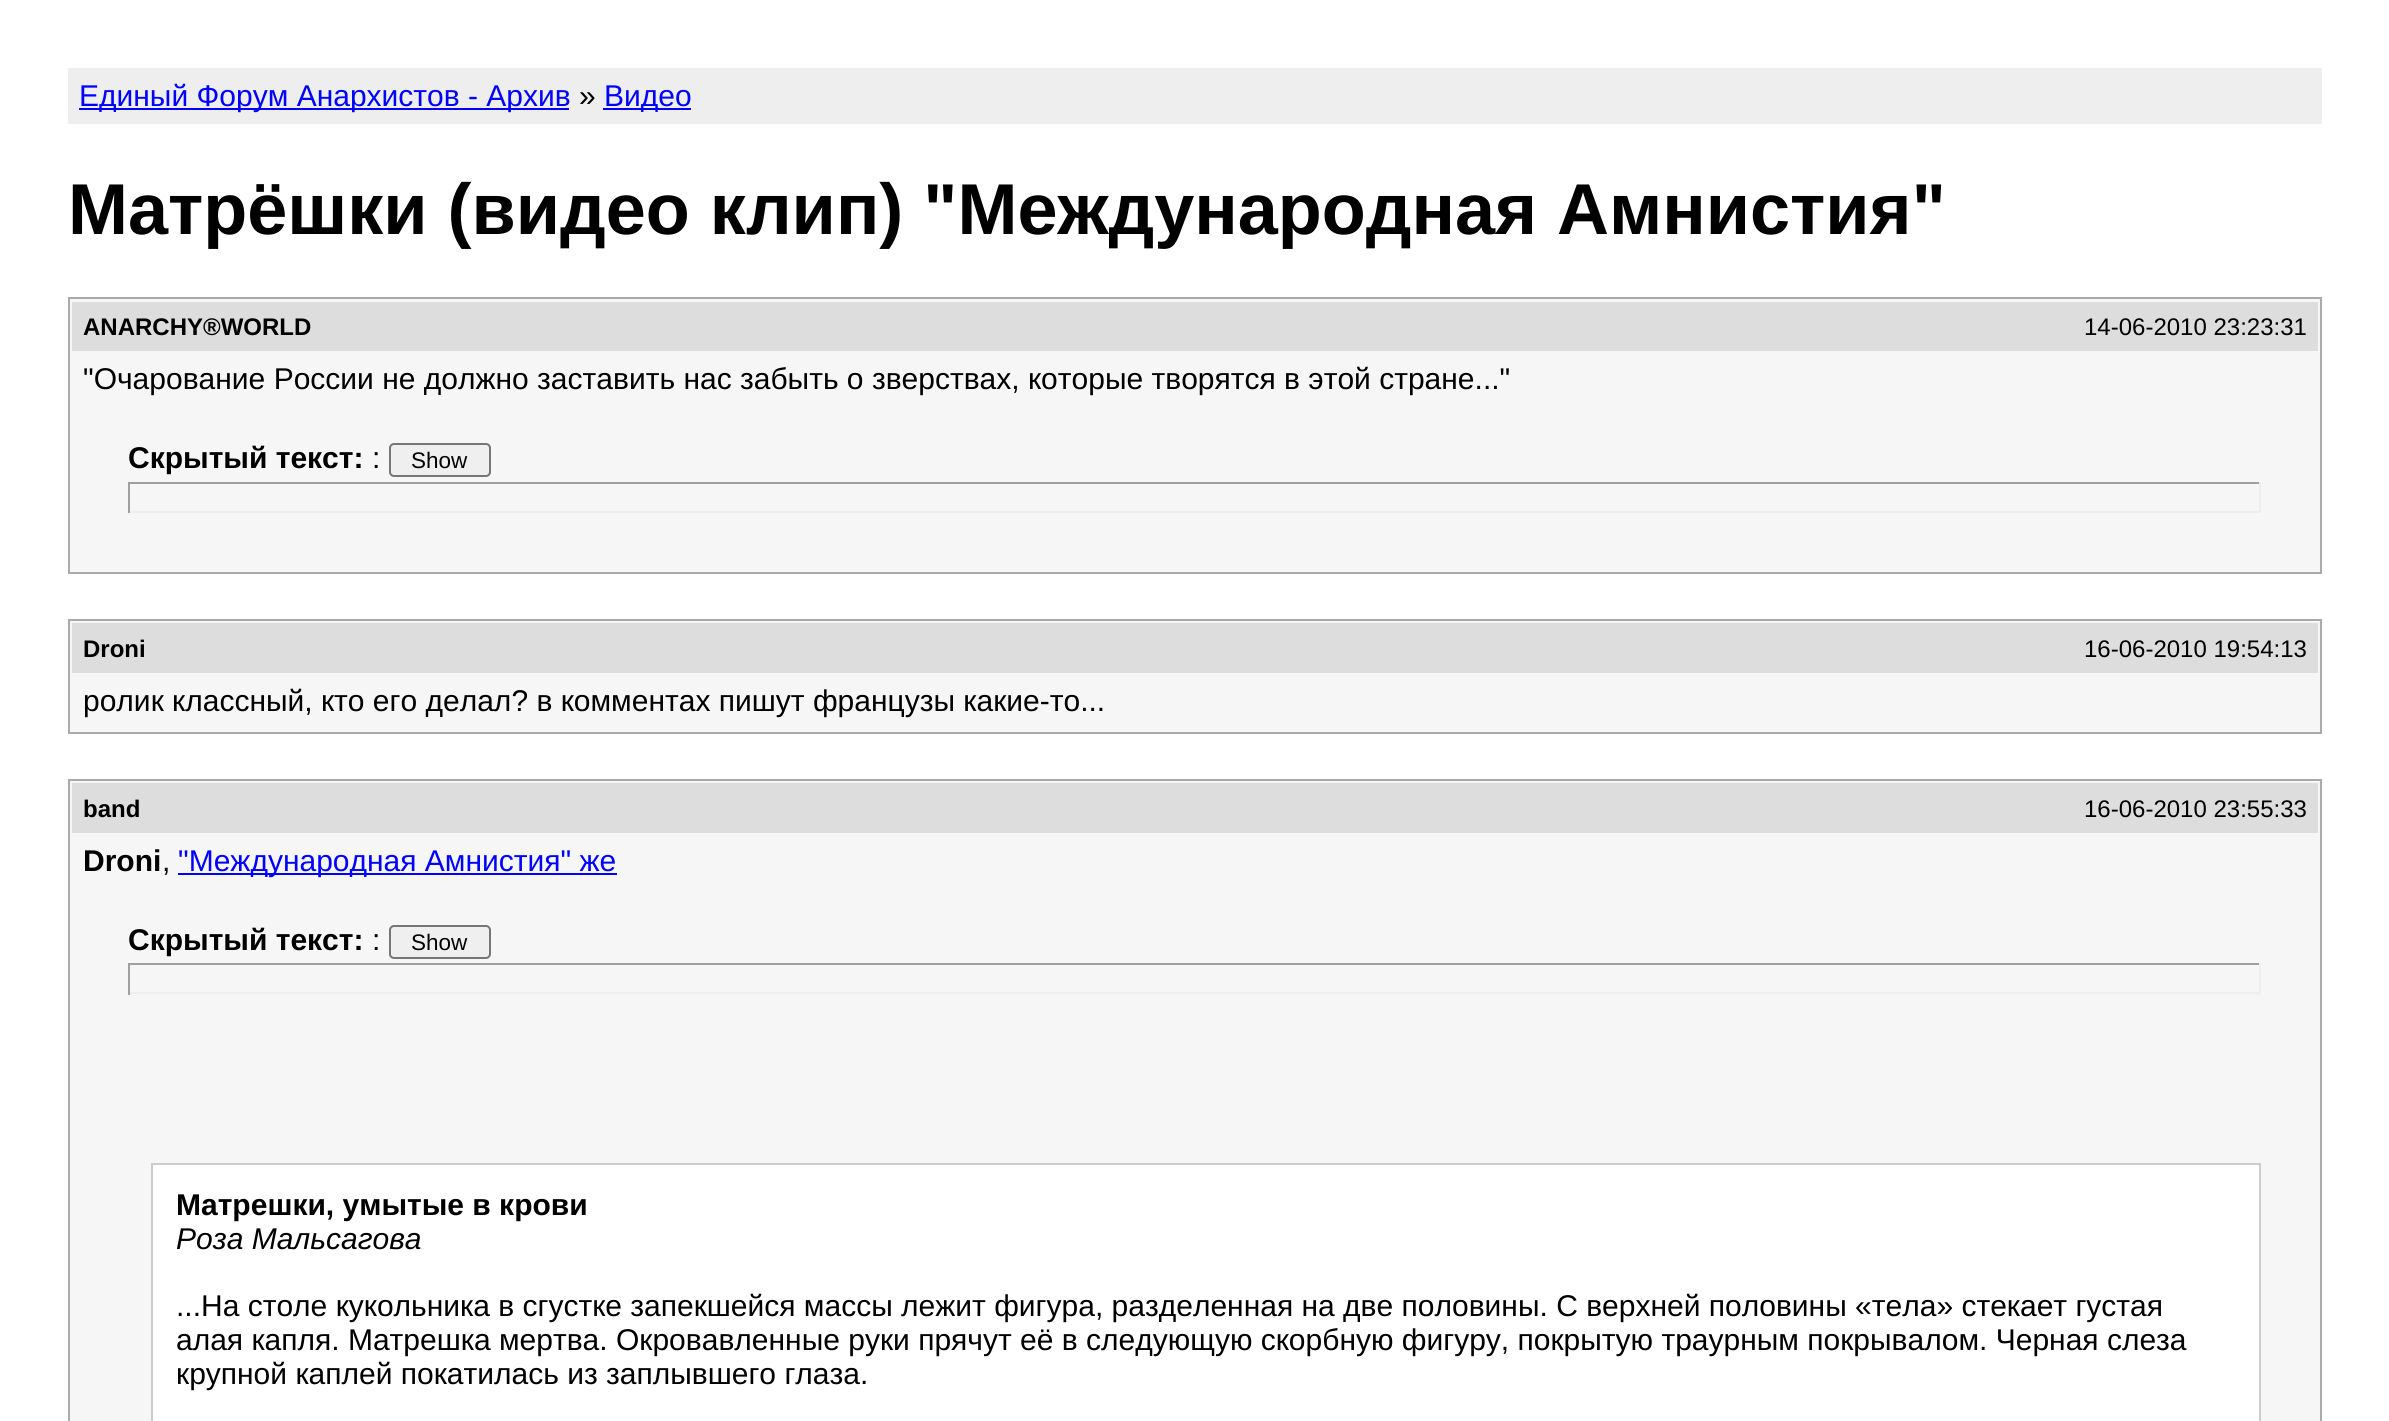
#include <cairo.h>
#include <math.h>
#include <stddef.h>


static void set_color(cairo_t *cr, unsigned color) {
    cairo_set_source_rgb(cr, (color >> 16) / 255.0, (color >> 8 & 255) / 255.0, (color & 255) / 255.0);
}

static void draw_text(cairo_t *cr, double x, double y, const char *s, const char *family, double size, int italic, int bold, unsigned color) {
    cairo_select_font_face(cr, family, italic ? CAIRO_FONT_SLANT_ITALIC : CAIRO_FONT_SLANT_NORMAL,
        bold ? CAIRO_FONT_WEIGHT_BOLD : CAIRO_FONT_WEIGHT_NORMAL);
    cairo_set_font_size(cr, size);
    set_color(cr, color);
    cairo_move_to(cr, x, y);
    cairo_show_text(cr, s);
}

static void fill_rect(cairo_t *cr, double x, double y, double w, double h, unsigned color) {
    set_color(cr, color);
    cairo_rectangle(cr, x, y, w, h);
    cairo_fill(cr);
}

static void rounded_rect(cairo_t *cr, double x, double y, double w, double h, double r) {
    cairo_new_sub_path(cr);
    cairo_arc(cr, x + w - r, y + h - r, r, 0, M_PI / 2);
    cairo_arc(cr, x + r, y + h - r, r, M_PI / 2, M_PI);
    cairo_arc(cr, x + r, y + r, r, M_PI, 1.5 * M_PI);
    cairo_arc(cr, x + w - r, y + r, r, 1.5 * M_PI, 2 * M_PI);
    cairo_close_path(cr);
}

int main(void) {
    cairo_surface_t *surface = cairo_image_surface_create(CAIRO_FORMAT_RGB24, 2389, 1421);
    cairo_t *cr = cairo_create(surface);
    cairo_font_options_t *options = cairo_font_options_create();
    cairo_font_options_set_hint_metrics(options, CAIRO_HINT_METRICS_OFF);
    cairo_font_options_set_hint_style(options, CAIRO_HINT_STYLE_NONE);
    cairo_set_font_options(cr, options);
    cairo_set_miter_limit(cr, 4);
    set_color(cr, 0xFFFFFF);
    cairo_paint(cr);
    fill_rect(cr, 68, 68, 2254, 56, 0xEEEEEE);
    fill_rect(cr, 79, 108, 490, 2, 0x0000FF);
    draw_text(cr, 79, 106, "Единый Форум Анархистов - Архив", "Liberation Sans", 30, 0, 0, 0x0000FF);
    draw_text(cr, 579, 106, "»", "Liberation Sans", 30, 0, 0, 0x000000);
    fill_rect(cr, 603, 108, 88, 2, 0x0000FF);
    draw_text(cr, 604, 106, "Видео", "Liberation Sans", 30, 0, 0, 0x0000FF);
    draw_text(cr, 68, 234, "Матрёшки (видео клип) \"Международная Амнистия\"", "Liberation Sans", 72, 0, 1, 0x000000);
    set_color(cr, 0xF6F6F6);
    cairo_rectangle(cr, 69, 298, 2252, 275);
    cairo_fill_preserve(cr);
    set_color(cr, 0xAAAAAA);
    cairo_stroke(cr);
    fill_rect(cr, 72, 302, 2246, 49, 0xDDDDDD);
    draw_text(cr, 83, 335, "АNARCHY®WORLD", "Liberation Sans", 24, 0, 1, 0x000000);
    draw_text(cr, 2084, 335, "14-06-2010 23:23:31", "Liberation Sans", 24, 0, 0, 0x000000);
    draw_text(cr, 83, 389, "\"Очарование России не должно заставить нас забыть о зверствах, которые творятся в этой стране...\"", "Liberation Sans", 30, 0, 0, 0x000000);
    draw_text(cr, 128, 468, "Скрытый текст:", "Liberation Sans", 30, 0, 1, 0x000000);
    draw_text(cr, 372, 468, ":", "Liberation Sans", 30, 0, 0, 0x000000);
    set_color(cr, 0xEFEFEF);
    rounded_rect(cr, 390, 444, 100, 32, 4);
    cairo_fill_preserve(cr);
    set_color(cr, 0x767676);
    cairo_stroke(cr);
    draw_text(cr, 411, 468, "Show", "Liberation Sans", 22.5, 0, 0, 0x000000);
    fill_rect(cr, 128, 482, 2133, 2, 0x9F9F9F);
    fill_rect(cr, 2259, 482, 2, 31, 0xEEEEEE);
    fill_rect(cr, 128, 511, 2133, 2, 0xEEEEEE);
    fill_rect(cr, 128, 482, 2, 31, 0x9F9F9F);
    set_color(cr, 0xF6F6F6);
    cairo_rectangle(cr, 69, 620, 2252, 113);
    cairo_fill_preserve(cr);
    set_color(cr, 0xAAAAAA);
    cairo_stroke(cr);
    fill_rect(cr, 72, 623, 2246, 50, 0xDDDDDD);
    draw_text(cr, 83, 657, "Droni", "Liberation Sans", 24, 0, 1, 0x000000);
    draw_text(cr, 2084, 657, "16-06-2010 19:54:13", "Liberation Sans", 24, 0, 0, 0x000000);
    draw_text(cr, 83, 711, "ролик классный, кто его делал? в комментах пишут французы какие-то...", "Liberation Sans", 30, 0, 0, 0x000000);
    set_color(cr, 0xF6F6F6);
    cairo_rectangle(cr, 69, 780, 2252, 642);
    cairo_fill_preserve(cr);
    set_color(cr, 0xAAAAAA);
    cairo_stroke(cr);
    fill_rect(cr, 72, 783, 2246, 50, 0xDDDDDD);
    draw_text(cr, 83, 817, "band", "Liberation Sans", 24, 0, 1, 0x000000);
    draw_text(cr, 2084, 817, "16-06-2010 23:55:33", "Liberation Sans", 24, 0, 0, 0x000000);
    draw_text(cr, 83, 871, "Droni", "Liberation Sans", 30, 0, 1, 0x000000);
    draw_text(cr, 162, 871, ",", "Liberation Sans", 30, 0, 0, 0x000000);
    fill_rect(cr, 178, 873, 439, 2, 0x0000FF);
    draw_text(cr, 178, 871, "\"Международная Амнистия\" же", "Liberation Sans", 30, 0, 0, 0x0000FF);
    draw_text(cr, 128, 950, "Скрытый текст:", "Liberation Sans", 30, 0, 1, 0x000000);
    draw_text(cr, 372, 950, ":", "Liberation Sans", 30, 0, 0, 0x000000);
    set_color(cr, 0xEFEFEF);
    rounded_rect(cr, 390, 926, 100, 32, 4);
    cairo_fill_preserve(cr);
    set_color(cr, 0x767676);
    cairo_stroke(cr);
    draw_text(cr, 411, 950, "Show", "Liberation Sans", 22.5, 0, 0, 0x000000);
    fill_rect(cr, 128, 963, 2133, 2, 0x9F9F9F);
    fill_rect(cr, 2259, 963, 2, 32, 0xEEEEEE);
    fill_rect(cr, 128, 992, 2133, 2, 0xEEEEEE);
    fill_rect(cr, 128, 963, 2, 32, 0x9F9F9F);
    set_color(cr, 0xFFFFFF);
    cairo_rectangle(cr, 152, 1164, 2108, 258);
    cairo_fill_preserve(cr);
    set_color(cr, 0xCCCCCC);
    cairo_stroke(cr);
    draw_text(cr, 176, 1215, "Матрешки, умытые в крови", "Liberation Sans", 30, 0, 1, 0x000000);
    draw_text(cr, 176, 1249, "Роза Мальсагова", "Liberation Sans", 30, 1, 0, 0x000000);
    draw_text(cr, 176, 1316, "...На столе кукольника в сгустке запекшейся массы лежит фигура, разделенная на две половины. С верхней половины «тела» стекает густая", "Liberation Sans", 30, 0, 0, 0x000000);
    draw_text(cr, 176, 1350, "алая капля. Матрешка мертва. Окровавленные руки прячут её в следующую скорбную фигуру, покрытую траурным покрывалом. Черная слеза", "Liberation Sans", 30, 0, 0, 0x000000);
    draw_text(cr, 176, 1384, "крупной каплей покатилась из заплывшего глаза.", "Liberation Sans", 30, 0, 0, 0x000000);
    cairo_surface_write_to_png(surface, "output.png");
    cairo_font_options_destroy(options);
    cairo_destroy(cr);
    cairo_surface_destroy(surface);
    return 0;
}
